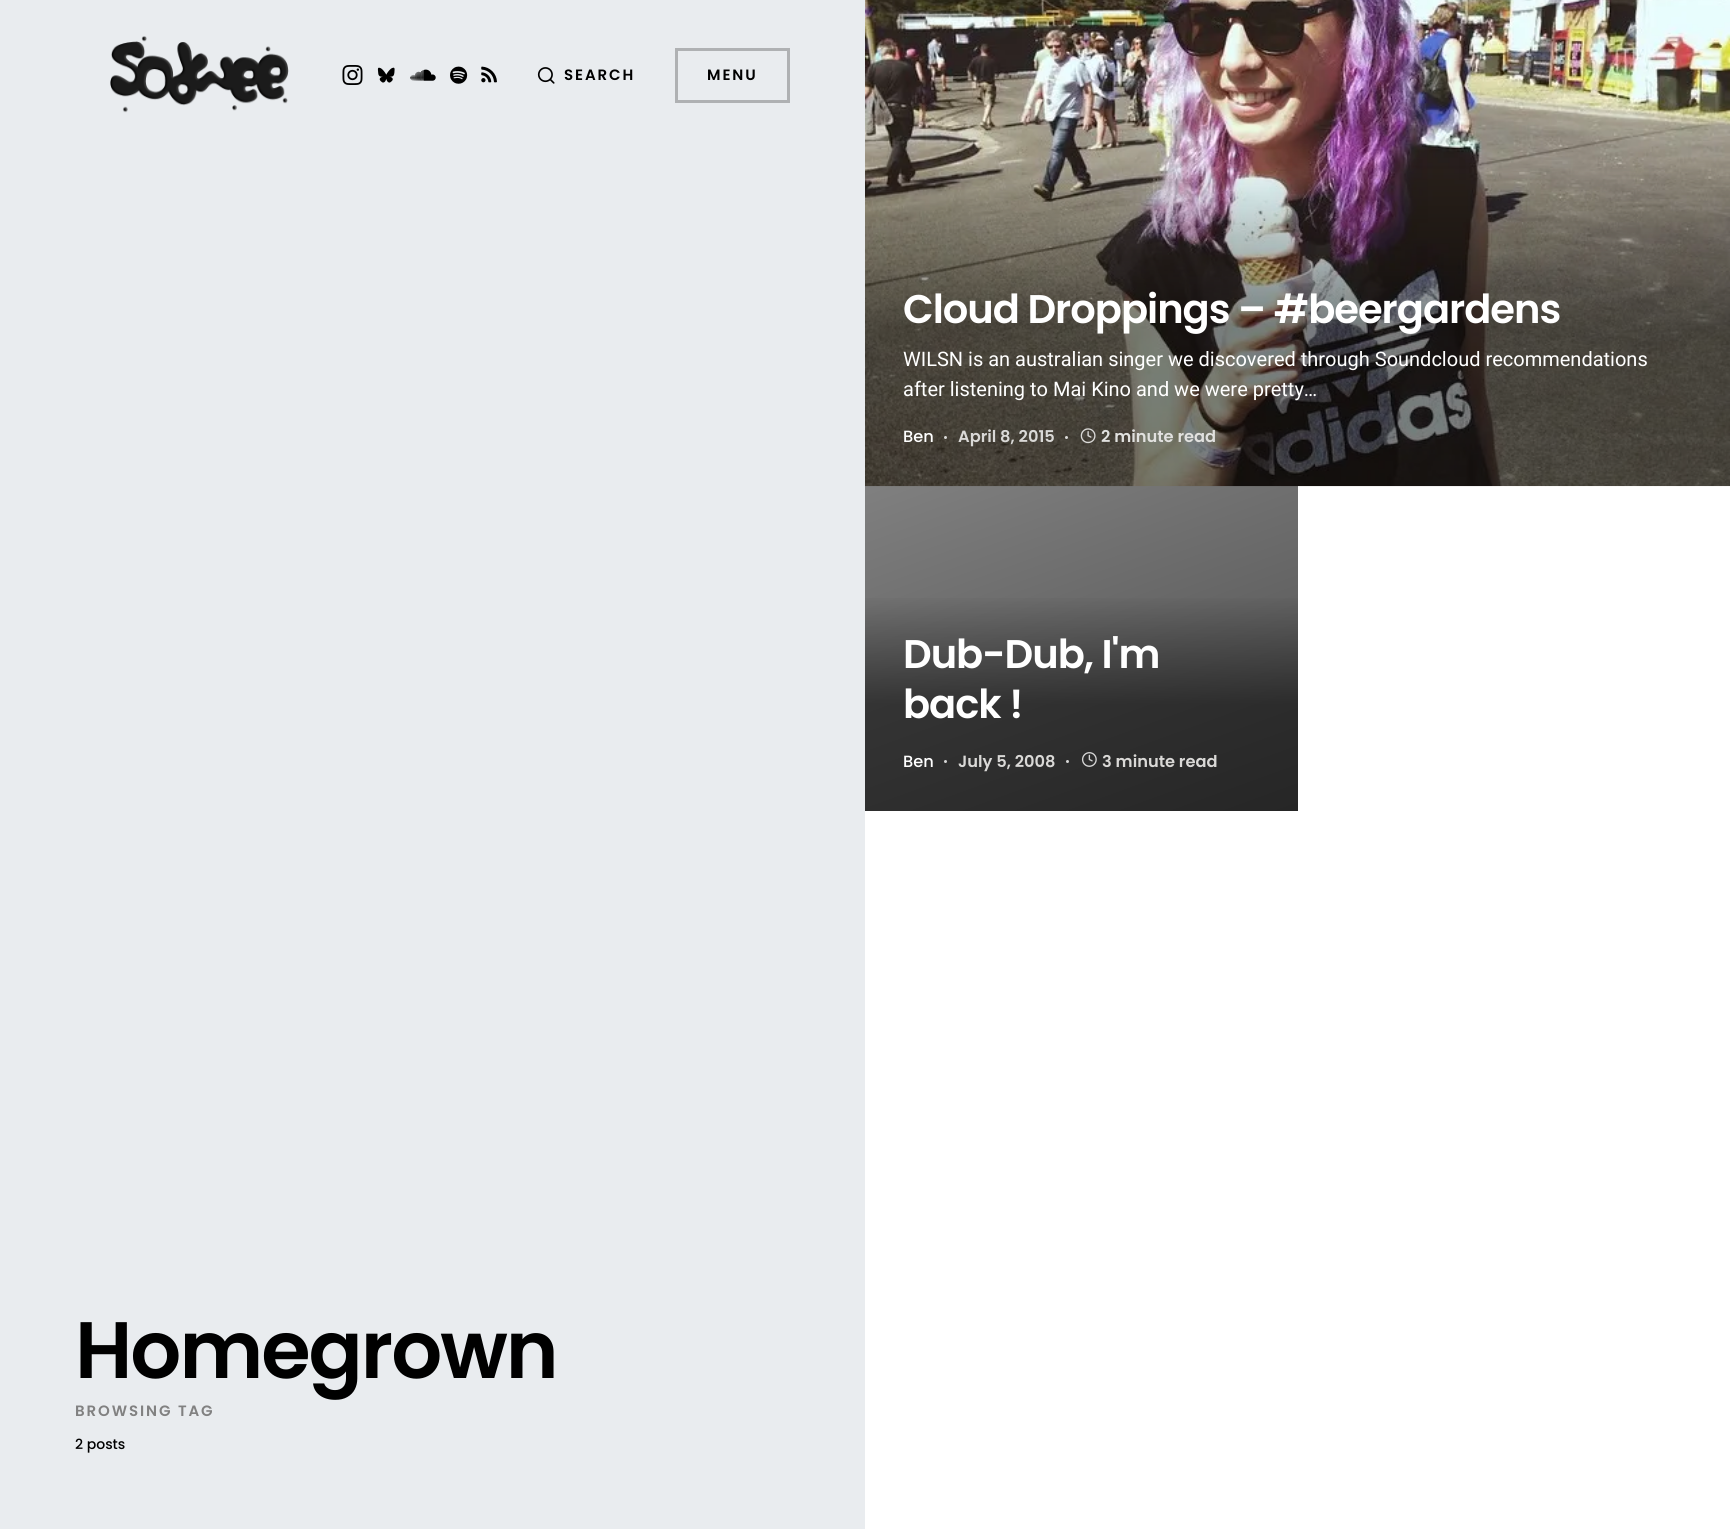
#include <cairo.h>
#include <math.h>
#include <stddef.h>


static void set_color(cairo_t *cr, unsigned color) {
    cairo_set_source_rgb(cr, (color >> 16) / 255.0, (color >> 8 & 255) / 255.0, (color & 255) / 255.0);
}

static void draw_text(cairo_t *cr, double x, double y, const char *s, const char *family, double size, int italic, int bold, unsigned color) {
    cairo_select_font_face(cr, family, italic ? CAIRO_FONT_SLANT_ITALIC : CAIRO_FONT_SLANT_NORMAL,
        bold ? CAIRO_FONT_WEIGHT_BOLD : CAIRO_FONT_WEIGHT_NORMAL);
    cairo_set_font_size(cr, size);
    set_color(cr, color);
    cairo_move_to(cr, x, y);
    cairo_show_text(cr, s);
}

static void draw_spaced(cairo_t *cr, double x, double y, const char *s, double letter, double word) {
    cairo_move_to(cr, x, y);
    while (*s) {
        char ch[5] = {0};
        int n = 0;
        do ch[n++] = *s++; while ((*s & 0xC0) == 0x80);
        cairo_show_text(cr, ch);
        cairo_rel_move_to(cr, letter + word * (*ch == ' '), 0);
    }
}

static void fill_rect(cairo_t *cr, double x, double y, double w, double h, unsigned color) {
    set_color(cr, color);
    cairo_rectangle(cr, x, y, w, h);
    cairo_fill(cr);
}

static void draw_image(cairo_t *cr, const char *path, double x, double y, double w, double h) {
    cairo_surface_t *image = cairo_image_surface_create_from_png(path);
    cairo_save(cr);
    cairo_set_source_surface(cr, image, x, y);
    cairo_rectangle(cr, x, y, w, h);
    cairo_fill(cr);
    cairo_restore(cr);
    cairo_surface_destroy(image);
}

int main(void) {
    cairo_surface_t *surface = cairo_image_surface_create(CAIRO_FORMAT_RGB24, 1730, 1529);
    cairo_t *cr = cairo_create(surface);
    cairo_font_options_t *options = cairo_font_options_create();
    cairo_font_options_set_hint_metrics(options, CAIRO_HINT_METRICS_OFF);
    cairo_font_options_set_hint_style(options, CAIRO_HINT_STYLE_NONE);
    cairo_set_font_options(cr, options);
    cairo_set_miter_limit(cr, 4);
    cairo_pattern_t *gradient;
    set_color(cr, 0xFFFFFF);
    cairo_paint(cr);
    fill_rect(cr, 0, 0, 865, 1529, 0xE9ECEF);
    draw_image(cr, "assets/img1.png", 110, 36, 179, 77);
    draw_image(cr, "assets/img2.png", 342, 65, 21, 20);
    draw_image(cr, "assets/img3.png", 377, 67, 18, 16);
    draw_image(cr, "assets/img4.png", 410, 69, 26, 12);
    draw_image(cr, "assets/img5.png", 450, 66, 18, 18);
    draw_image(cr, "assets/img6.png", 481, 66, 16, 17);
    draw_image(cr, "assets/img7.png", 537, 67, 18, 17);
    cairo_select_font_face(cr, "Poppins SemiBold", CAIRO_FONT_SLANT_NORMAL, CAIRO_FONT_WEIGHT_NORMAL);
    cairo_set_font_size(cr, 15);
    set_color(cr, 0x000000);
    draw_spaced(cr, 564, 80, "SEARCH", 1.9, 0);
    cairo_rectangle(cr, 676.5, 49.5, 112, 52);
    set_color(cr, 0xAFB1B3);
    cairo_set_line_width(cr, 3);
    cairo_stroke(cr);
    set_color(cr, 0x000000);
    draw_spaced(cr, 707, 80, "MENU", 1.9, 0);
    cairo_set_font_size(cr, 80);
    draw_spaced(cr, 75, 1378, "Homegrown", -2, 0);
    cairo_set_font_size(cr, 15);
    set_color(cr, 0x818181);
    draw_spaced(cr, 75, 1416, "BROWSING TAG", 1.9, 0);
    draw_text(cr, 75, 1449, "2 posts", "Poppins Medium", 14, 0, 0, 0x000000);
    draw_image(cr, "assets/img8.png", 865, 0, 865, 487);
    cairo_select_font_face(cr, "Poppins SemiBold", CAIRO_FONT_SLANT_NORMAL, CAIRO_FONT_WEIGHT_NORMAL);
    cairo_set_font_size(cr, 40);
    set_color(cr, 0xFFFFFF);
    draw_spaced(cr, 903, 323, "Cloud Droppings – #beergardens", -1, 0);
    draw_text(cr, 903, 366, "WILSN is an australian singer we discovered through Soundcloud recommendations", "Roboto", 20, 0, 0, 0xFFFFFF);
    draw_text(cr, 903, 396, "after listening to Mai Kino and we were pretty…", "Roboto", 20, 0, 0, 0xFFFFFF);
    draw_text(cr, 903, 442, "Ben", "Poppins Medium", 16.25, 0, 0, 0xFFFFFF);
    cairo_set_source_rgba(cr, 1, 1, 1, 0.8);
    cairo_new_path(cr);
    cairo_arc(cr, 945.5, 437.5, 1.5, 0, 2 * M_PI);
    cairo_fill(cr);
    draw_text(cr, 958, 442, "April 8, 2015", "Poppins SemiBold", 16.25, 0, 0, 0xDAD9D7);
    cairo_set_source_rgba(cr, 1, 1, 1, 0.8);
    cairo_new_path(cr);
    cairo_arc(cr, 1066.5, 437.5, 1.5, 0, 2 * M_PI);
    cairo_fill(cr);
    draw_image(cr, "assets/img9.png", 1080, 428, 16, 16);
    draw_text(cr, 1101, 442, "2 minute read", "Poppins SemiBold", 16.25, 0, 0, 0xE1E1DF);
    gradient = cairo_pattern_create_linear(1004, 436, 1159, 862);
    cairo_pattern_add_color_stop_rgba(gradient, 0, 0, 0, 0, 0.5);
    cairo_pattern_add_color_stop_rgba(gradient, 1, 0, 0, 0, 0.7);
    cairo_set_source(cr, gradient);
    cairo_pattern_destroy(gradient);
    cairo_rectangle(cr, 865, 486, 433, 325);
    cairo_fill(cr);
    gradient = cairo_pattern_create_linear(1081, 486, 1081, 811);
    cairo_pattern_add_color_stop_rgba(gradient, 0.33, 0, 0, 0, 0);
    cairo_pattern_add_color_stop_rgba(gradient, 0.67, 0, 0, 0, 0.5);
    cairo_set_source(cr, gradient);
    cairo_pattern_destroy(gradient);
    cairo_rectangle(cr, 865, 598, 433, 213);
    cairo_fill(cr);
    cairo_set_font_size(cr, 40);
    set_color(cr, 0xFFFFFF);
    draw_spaced(cr, 903, 668, "Dub-Dub, I'm", -1, 0);
    draw_spaced(cr, 903, 718, "back !", -1, 0);
    draw_text(cr, 903, 767, "Ben", "Poppins Medium", 16.25, 0, 0, 0xFFFFFF);
    set_color(cr, 0xD5D5D5);
    cairo_new_path(cr);
    cairo_arc(cr, 945.5, 761.5, 1.5, 0, 2 * M_PI);
    cairo_fill(cr);
    draw_text(cr, 958, 767, "July 5, 2008", "Poppins SemiBold", 16.25, 0, 0, 0xDAD9D7);
    set_color(cr, 0xD5D5D5);
    cairo_new_path(cr);
    cairo_arc(cr, 1067.5, 761.5, 1.5, 0, 2 * M_PI);
    cairo_fill(cr);
    draw_image(cr, "assets/img10.png", 1081, 752, 16, 15);
    draw_text(cr, 1102, 767, "3 minute read", "Poppins SemiBold", 16.25, 0, 0, 0xDAD9D7);
    cairo_surface_write_to_png(surface, "output.png");
    cairo_font_options_destroy(options);
    cairo_destroy(cr);
    cairo_surface_destroy(surface);
    return 0;
}
